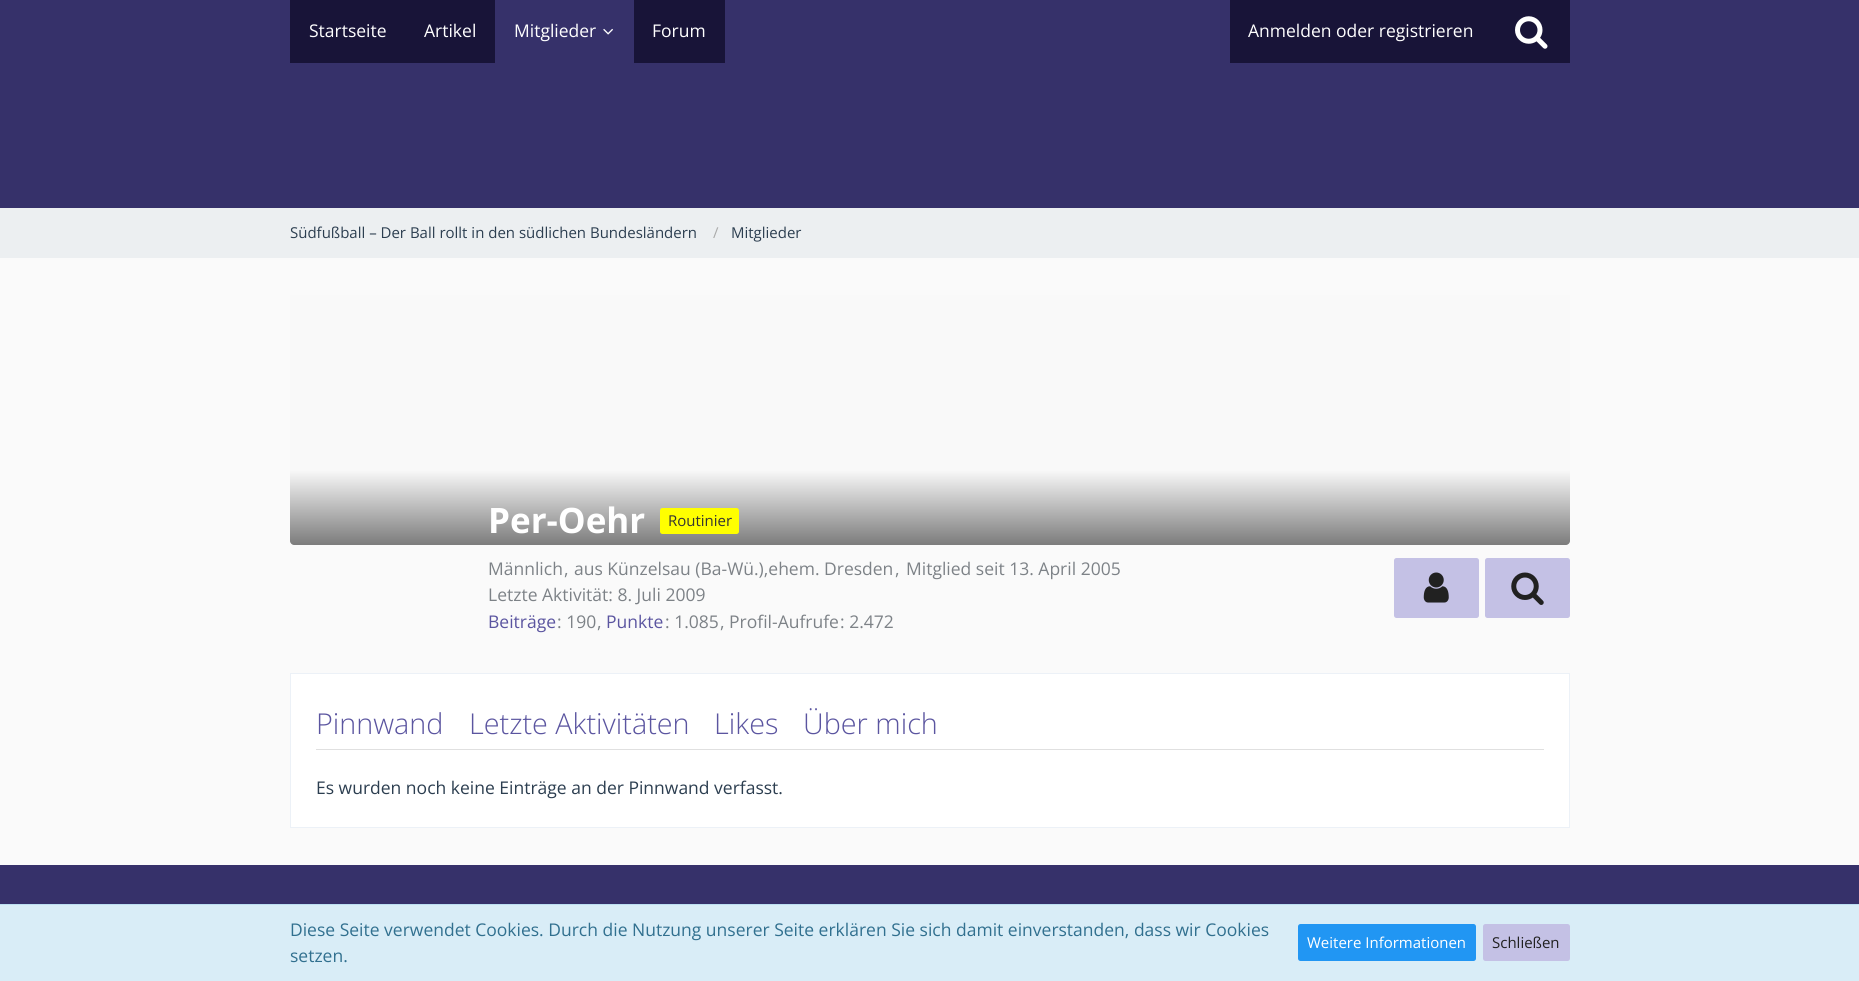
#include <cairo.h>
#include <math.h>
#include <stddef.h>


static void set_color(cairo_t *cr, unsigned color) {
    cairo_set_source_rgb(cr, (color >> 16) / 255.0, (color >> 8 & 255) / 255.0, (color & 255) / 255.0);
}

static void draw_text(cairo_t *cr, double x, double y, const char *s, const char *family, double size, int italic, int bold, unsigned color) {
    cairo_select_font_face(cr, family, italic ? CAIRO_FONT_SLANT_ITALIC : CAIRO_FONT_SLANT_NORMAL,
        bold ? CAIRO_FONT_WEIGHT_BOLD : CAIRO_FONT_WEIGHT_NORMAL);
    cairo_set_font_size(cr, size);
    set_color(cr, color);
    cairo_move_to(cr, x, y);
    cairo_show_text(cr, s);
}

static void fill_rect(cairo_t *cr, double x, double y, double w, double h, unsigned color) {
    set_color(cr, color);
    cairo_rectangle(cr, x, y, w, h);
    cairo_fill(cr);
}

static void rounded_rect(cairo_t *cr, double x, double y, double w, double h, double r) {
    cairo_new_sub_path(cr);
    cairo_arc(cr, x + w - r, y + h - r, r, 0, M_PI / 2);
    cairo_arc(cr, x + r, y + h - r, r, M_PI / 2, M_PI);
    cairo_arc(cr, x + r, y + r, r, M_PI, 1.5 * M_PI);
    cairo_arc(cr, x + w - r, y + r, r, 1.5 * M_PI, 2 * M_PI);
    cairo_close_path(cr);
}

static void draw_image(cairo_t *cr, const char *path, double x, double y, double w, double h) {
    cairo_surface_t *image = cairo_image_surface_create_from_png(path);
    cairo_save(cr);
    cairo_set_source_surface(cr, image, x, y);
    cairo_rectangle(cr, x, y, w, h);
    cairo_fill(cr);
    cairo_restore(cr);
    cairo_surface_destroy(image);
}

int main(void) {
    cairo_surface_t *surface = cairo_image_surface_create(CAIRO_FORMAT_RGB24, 1859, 981);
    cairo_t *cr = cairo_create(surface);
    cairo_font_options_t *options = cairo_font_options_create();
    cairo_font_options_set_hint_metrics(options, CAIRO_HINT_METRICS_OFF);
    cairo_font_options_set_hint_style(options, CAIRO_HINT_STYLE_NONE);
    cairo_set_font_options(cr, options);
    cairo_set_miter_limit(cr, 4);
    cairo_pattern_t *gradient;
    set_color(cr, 0xFAFAFA);
    cairo_paint(cr);
    fill_rect(cr, 0, 0, 1859, 208, 0x36316A);
    fill_rect(cr, 290, 0, 205, 63, 0x181438);
    draw_text(cr, 309, 37, "Startseite", "Open Sans", 17.5, 0, 0, 0xFFFFFF);
    draw_text(cr, 424, 37, "Artikel", "Open Sans", 17.5, 0, 0, 0xFFFFFF);
    draw_text(cr, 514, 37, "Mitglieder", "Open Sans", 17.5, 0, 0, 0xFFFFFF);
    draw_image(cr, "assets/img1.png", 603, 28, 10, 7);
    fill_rect(cr, 634, 0, 91, 63, 0x181438);
    draw_text(cr, 652, 37, "Forum", "Open Sans", 17.5, 0, 0, 0xFFFFFF);
    fill_rect(cr, 1230, 0, 340, 63, 0x181438);
    draw_text(cr, 1248, 37, "Anmelden oder registrieren", "Open Sans", 17.5, 0, 0, 0xFFFFFF);
    draw_image(cr, "assets/img2.png", 1515, 16, 33, 33);
    fill_rect(cr, 0, 208, 1859, 50, 0xECEFF1);
    draw_text(cr, 290, 238, "Südfußball – Der Ball rollt in den südlichen Bundesländern", "Open Sans", 15, 0, 0, 0x2C3E50);
    draw_text(cr, 713, 238, "/", "Open Sans", 15, 0, 0, 0xAAAAAA);
    draw_text(cr, 731, 238, "Mitglieder", "Open Sans", 15, 0, 0, 0x2C3E50);
    gradient = cairo_pattern_create_linear(930, 295, 930, 545);
    cairo_pattern_add_color_stop_rgba(gradient, 0.7, 0.976, 0.976, 0.976, 1);
    cairo_pattern_add_color_stop_rgba(gradient, 1, 0.486, 0.486, 0.486, 1);
    cairo_set_source(cr, gradient);
    cairo_pattern_destroy(gradient);
    cairo_new_path(cr);
    cairo_move_to(cr, 290, 295);
    cairo_line_to(cr, 1570, 295);
    cairo_line_to(cr, 1570, 541);
    cairo_curve_to(cr, 1570, 543, 1568, 545, 1566, 545);
    cairo_line_to(cr, 294, 545);
    cairo_curve_to(cr, 292, 545, 290, 543, 290, 541);
    cairo_close_path(cr);
    cairo_fill(cr);
    draw_text(cr, 488, 533, "Per-Oehr", "Open Sans", 35, 0, 1, 0xFFFFFF);
    set_color(cr, 0xFFFF00);
    rounded_rect(cr, 660, 508, 79, 26, 2.5);
    cairo_fill(cr);
    draw_text(cr, 668, 526, "Routinier", "Open Sans", 15, 0, 0, 0x333333);
    draw_text(cr, 488, 575, "Männlich", "Open Sans", 17.5, 0, 0, 0x7D8287);
    draw_text(cr, 564, 575, ",", "Open Sans", 17.5, 0, 0, 0x7D8287);
    draw_text(cr, 574, 575, "aus Künzelsau (Ba-Wü.),ehem. Dresden", "Open Sans", 17.5, 0, 0, 0x7D8287);
    draw_text(cr, 895, 575, ",", "Open Sans", 17.5, 0, 0, 0x7D8287);
    draw_text(cr, 906, 575, "Mitglied seit 13. April 2005", "Open Sans", 17.5, 0, 0, 0x7D8287);
    draw_text(cr, 488, 601, "Letzte Aktivität: 8. Juli 2009", "Open Sans", 17.5, 0, 0, 0x7D8287);
    draw_text(cr, 488, 628, "Beiträge", "Open Sans", 17.5, 0, 0, 0x5B55A0);
    draw_text(cr, 557, 628, ": 190", "Open Sans", 17.5, 0, 0, 0x7D8287);
    draw_text(cr, 597, 628, ",", "Open Sans", 17.5, 0, 0, 0x7D8287);
    draw_text(cr, 606, 628, "Punkte", "Open Sans", 17.5, 0, 0, 0x5B55A0);
    draw_text(cr, 665, 628, ": 1.085", "Open Sans", 17.5, 0, 0, 0x7D8287);
    draw_text(cr, 720, 628, ", Profil-Aufrufe", "Open Sans", 17.5, 0, 0, 0x7D8287);
    draw_text(cr, 840, 628, ": 2.472", "Open Sans", 17.5, 0, 0, 0x7D8287);
    set_color(cr, 0xC4C1E5);
    rounded_rect(cr, 1394, 558, 85, 60, 2.5);
    cairo_fill(cr);
    draw_image(cr, "assets/img3.png", 1423, 572, 26, 31);
    rounded_rect(cr, 1485, 558, 85, 60, 2.5);
    cairo_fill(cr);
    draw_image(cr, "assets/img4.png", 1511, 572, 33, 33);
    set_color(cr, 0xFFFFFF);
    cairo_rectangle(cr, 290.5, 673.5, 1279, 154);
    cairo_fill_preserve(cr);
    set_color(cr, 0xECF1F7);
    cairo_set_line_width(cr, 1);
    cairo_stroke(cr);
    fill_rect(cr, 316, 749, 1228, 1, 0xE0E0E0);
    draw_text(cr, 316, 734, "Pinnwand", "Open Sans Light", 28.75, 0, 0, 0x5B55A0);
    draw_text(cr, 469, 734, "Letzte Aktivitäten", "Open Sans Light", 28.75, 0, 0, 0x5B55A0);
    draw_text(cr, 714, 734, "Likes", "Open Sans Light", 28.75, 0, 0, 0x5B55A0);
    draw_text(cr, 803, 734, "Über mich", "Open Sans Light", 28.75, 0, 0, 0x5B55A0);
    draw_text(cr, 316, 794, "Es wurden noch keine Einträge an der Pinnwand verfasst.", "Open Sans", 17.5, 0, 0, 0x2C3E50);
    fill_rect(cr, 0, 865, 1859, 39, 0x36316A);
    fill_rect(cr, 0, 905, 1859, 76, 0xD9EDF7);
    fill_rect(cr, 0, 904, 1859, 1, 0xBCDFF1);
    draw_text(cr, 290, 936, "Diese Seite verwendet Cookies. Durch die Nutzung unserer Seite erklären Sie sich damit einverstanden, dass wir Cookies", "Open Sans", 17.5, 0, 0, 0x31708F);
    draw_text(cr, 290, 962, "setzen.", "Open Sans", 17.5, 0, 0, 0x31708F);
    set_color(cr, 0x2196F3);
    rounded_rect(cr, 1298, 924, 178, 37, 2.5);
    cairo_fill(cr);
    draw_text(cr, 1307, 948, "Weitere Informationen", "Open Sans", 15, 0, 0, 0xFFFFFF);
    set_color(cr, 0xC4C1E5);
    rounded_rect(cr, 1483, 924, 87, 37, 2.5);
    cairo_fill(cr);
    draw_text(cr, 1492, 948, "Schließen", "Open Sans", 15, 0, 0, 0x212121);
    cairo_surface_write_to_png(surface, "output.png");
    cairo_font_options_destroy(options);
    cairo_destroy(cr);
    cairo_surface_destroy(surface);
    return 0;
}
